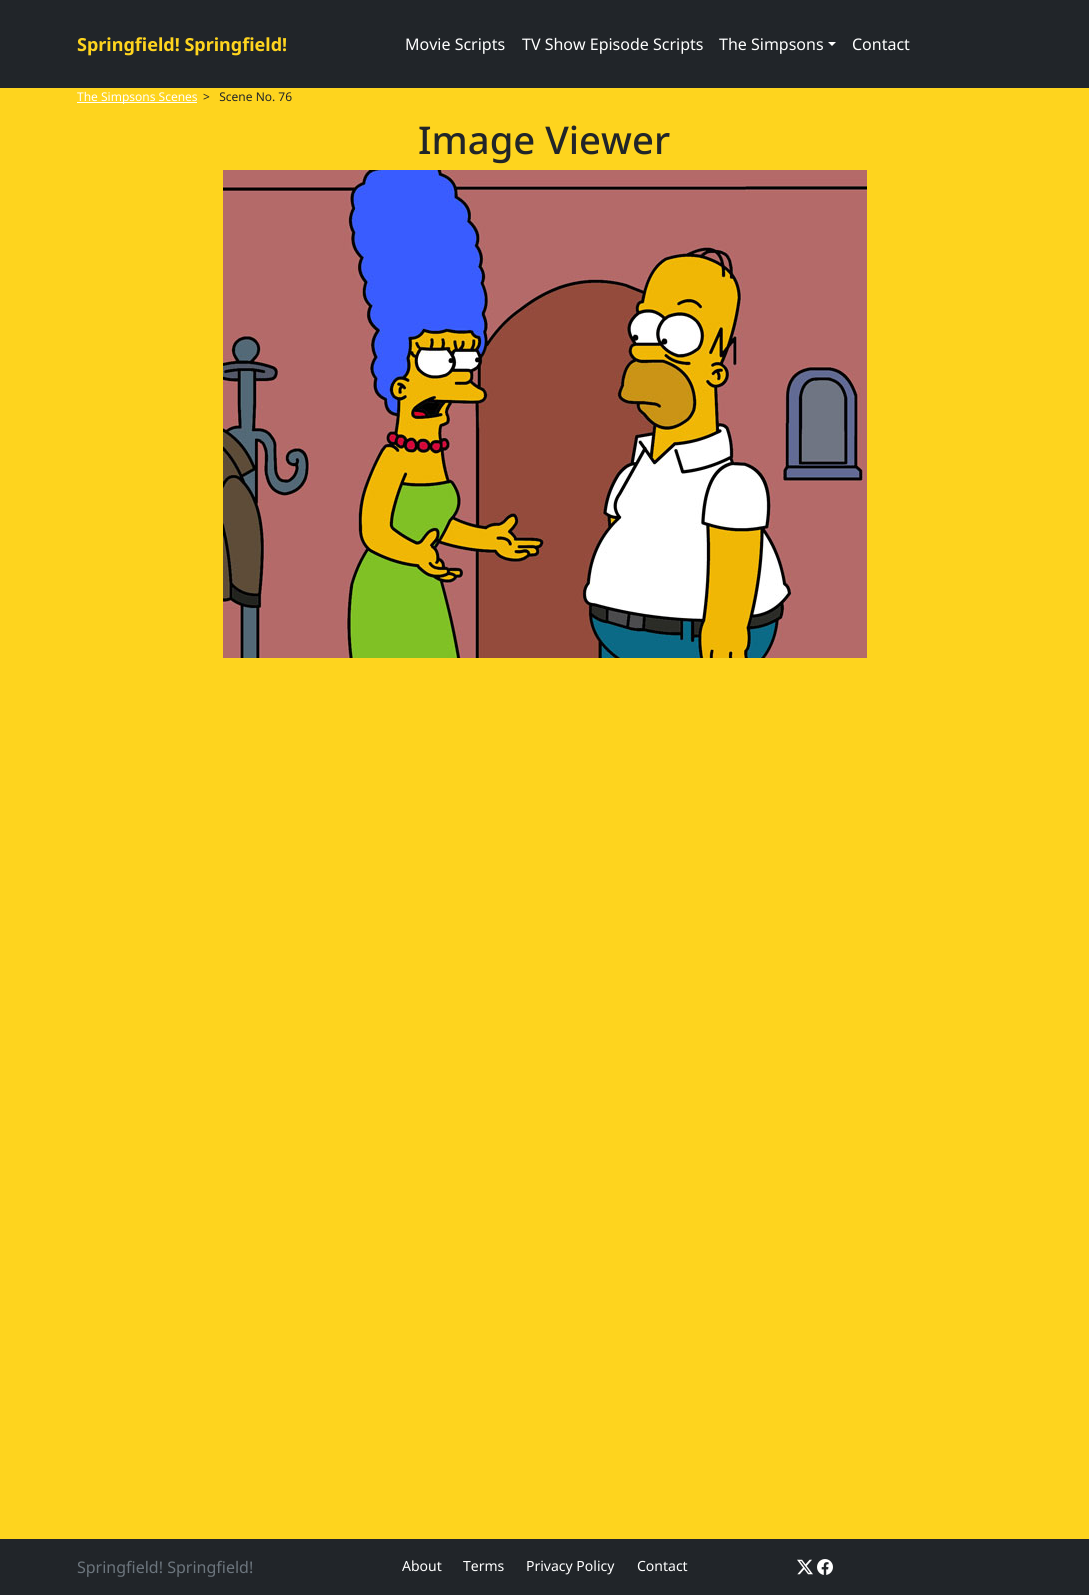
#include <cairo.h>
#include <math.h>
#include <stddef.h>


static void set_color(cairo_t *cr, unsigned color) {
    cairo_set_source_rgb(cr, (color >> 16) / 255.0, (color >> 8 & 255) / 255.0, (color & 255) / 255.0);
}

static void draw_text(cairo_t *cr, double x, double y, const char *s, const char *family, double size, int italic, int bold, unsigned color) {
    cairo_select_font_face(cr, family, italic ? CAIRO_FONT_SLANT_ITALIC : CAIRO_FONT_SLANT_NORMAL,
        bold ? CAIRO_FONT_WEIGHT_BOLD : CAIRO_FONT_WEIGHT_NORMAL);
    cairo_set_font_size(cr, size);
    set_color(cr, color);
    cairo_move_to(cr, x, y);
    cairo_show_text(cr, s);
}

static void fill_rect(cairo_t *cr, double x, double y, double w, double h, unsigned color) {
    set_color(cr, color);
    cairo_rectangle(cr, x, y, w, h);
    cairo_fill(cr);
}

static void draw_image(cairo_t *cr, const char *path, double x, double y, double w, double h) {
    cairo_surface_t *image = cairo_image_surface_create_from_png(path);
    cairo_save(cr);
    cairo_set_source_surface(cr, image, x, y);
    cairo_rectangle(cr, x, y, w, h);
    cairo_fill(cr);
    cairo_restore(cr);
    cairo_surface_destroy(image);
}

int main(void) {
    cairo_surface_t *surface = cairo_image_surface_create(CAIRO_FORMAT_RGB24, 1089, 1595);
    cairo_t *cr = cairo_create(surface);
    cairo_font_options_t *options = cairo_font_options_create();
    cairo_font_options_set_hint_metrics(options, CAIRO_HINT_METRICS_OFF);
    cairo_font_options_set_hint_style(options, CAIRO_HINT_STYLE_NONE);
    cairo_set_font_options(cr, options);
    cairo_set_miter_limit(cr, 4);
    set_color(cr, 0xFED41E);
    cairo_paint(cr);
    fill_rect(cr, 0, 0, 1089, 88, 0x212529);
    draw_text(cr, 77, 51, "Springfield! Springfield!", "Noto Sans", 18, 0, 1, 0xFED41E);
    draw_text(cr, 405, 50, "Movie Scripts", "Noto Sans", 16, 0, 0, 0xFFFFFF);
    draw_text(cr, 522, 50, "TV Show Episode Scripts", "Noto Sans", 16, 0, 0, 0xFFFFFF);
    draw_text(cr, 719, 50, "The Simpsons", "Noto Sans", 16, 0, 0, 0xFFFFFF);
    cairo_new_path(cr);
    cairo_move_to(cr, 828, 42);
    cairo_line_to(cr, 836, 42);
    cairo_line_to(cr, 832, 46);
    cairo_close_path(cr);
    cairo_fill(cr);
    draw_text(cr, 852, 50, "Contact", "Noto Sans", 16, 0, 0, 0xFFFFFF);
    fill_rect(cr, 77, 102, 120, 1, 0xFFFFFF);
    draw_text(cr, 77, 101, "The Simpsons Scenes", "Noto Sans", 12, 0, 0, 0xFFFFFF);
    draw_text(cr, 203, 101, ">   Scene No. 76", "Noto Sans", 12, 0, 0, 0x212529);
    draw_text(cr, 418, 154, "Image Viewer", "Noto Sans Medium", 38.25, 0, 0, 0x212529);
    draw_image(cr, "assets/img1.png", 223, 170, 644, 488);
    fill_rect(cr, 0, 1539, 1089, 56, 0x212529);
    draw_text(cr, 77, 1573, "Springfield! Springfield!", "Noto Sans", 16, 0, 0, 0x6C757D);
    draw_text(cr, 402, 1571, "About", "Noto Sans", 14, 0, 0, 0xFFFFFF);
    draw_text(cr, 463, 1571, "Terms", "Noto Sans", 14, 0, 0, 0xFFFFFF);
    draw_text(cr, 526, 1571, "Privacy Policy", "Noto Sans", 14, 0, 0, 0xFFFFFF);
    draw_text(cr, 637, 1571, "Contact", "Noto Sans", 14, 0, 0, 0xFFFFFF);
    draw_image(cr, "assets/img2.png", 797, 1559, 16, 16);
    draw_image(cr, "assets/img3.png", 817, 1559, 16, 16);
    cairo_surface_write_to_png(surface, "output.png");
    cairo_font_options_destroy(options);
    cairo_destroy(cr);
    cairo_surface_destroy(surface);
    return 0;
}
